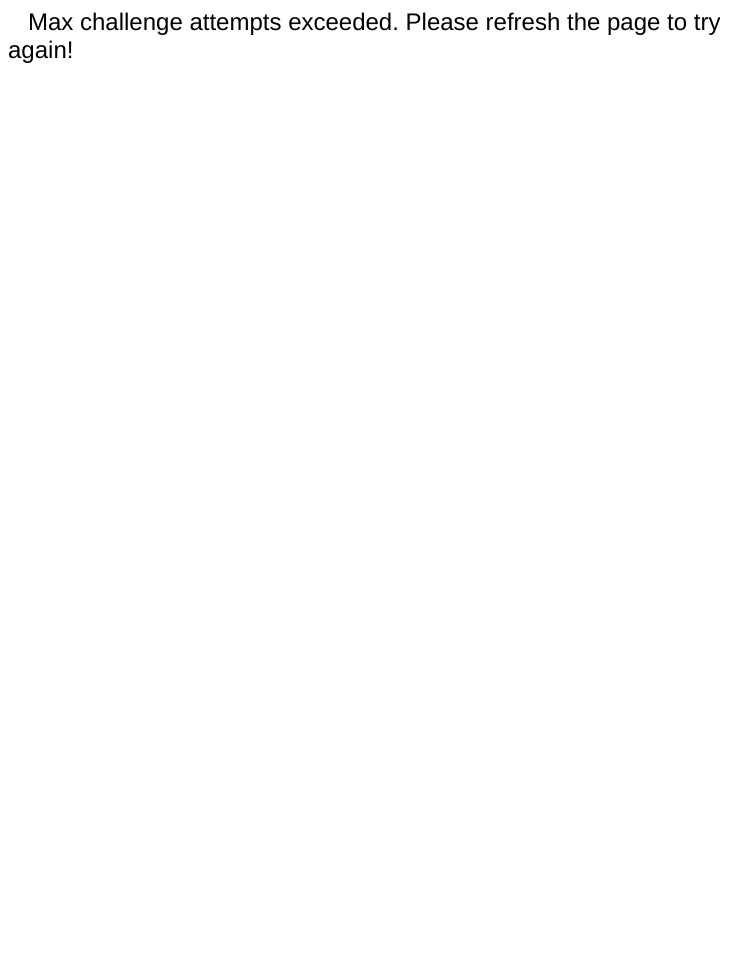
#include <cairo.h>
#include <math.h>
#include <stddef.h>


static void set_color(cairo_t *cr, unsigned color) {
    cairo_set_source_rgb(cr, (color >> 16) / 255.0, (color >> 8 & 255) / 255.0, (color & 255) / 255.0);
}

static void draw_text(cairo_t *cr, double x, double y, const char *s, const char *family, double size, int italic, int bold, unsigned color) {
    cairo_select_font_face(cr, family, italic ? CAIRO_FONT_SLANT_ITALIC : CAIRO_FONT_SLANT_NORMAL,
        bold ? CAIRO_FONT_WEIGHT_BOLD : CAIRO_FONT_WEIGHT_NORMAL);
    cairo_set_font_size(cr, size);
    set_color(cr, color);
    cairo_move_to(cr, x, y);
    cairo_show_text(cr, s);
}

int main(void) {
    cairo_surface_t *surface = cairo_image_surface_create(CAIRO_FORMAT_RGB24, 748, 955);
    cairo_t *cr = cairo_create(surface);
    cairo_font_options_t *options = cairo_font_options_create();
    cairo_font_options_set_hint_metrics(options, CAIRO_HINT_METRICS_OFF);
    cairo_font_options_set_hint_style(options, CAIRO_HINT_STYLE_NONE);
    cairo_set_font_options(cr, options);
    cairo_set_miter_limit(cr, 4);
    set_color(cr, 0xFFFFFF);
    cairo_paint(cr);
    draw_text(cr, 28, 30, "Max challenge attempts exceeded. Please refresh the page to try", "Liberation Sans", 24, 0, 0, 0x000000);
    draw_text(cr, 8, 58, "again!", "Liberation Sans", 24, 0, 0, 0x000000);
    cairo_surface_write_to_png(surface, "output.png");
    cairo_font_options_destroy(options);
    cairo_destroy(cr);
    cairo_surface_destroy(surface);
    return 0;
}
